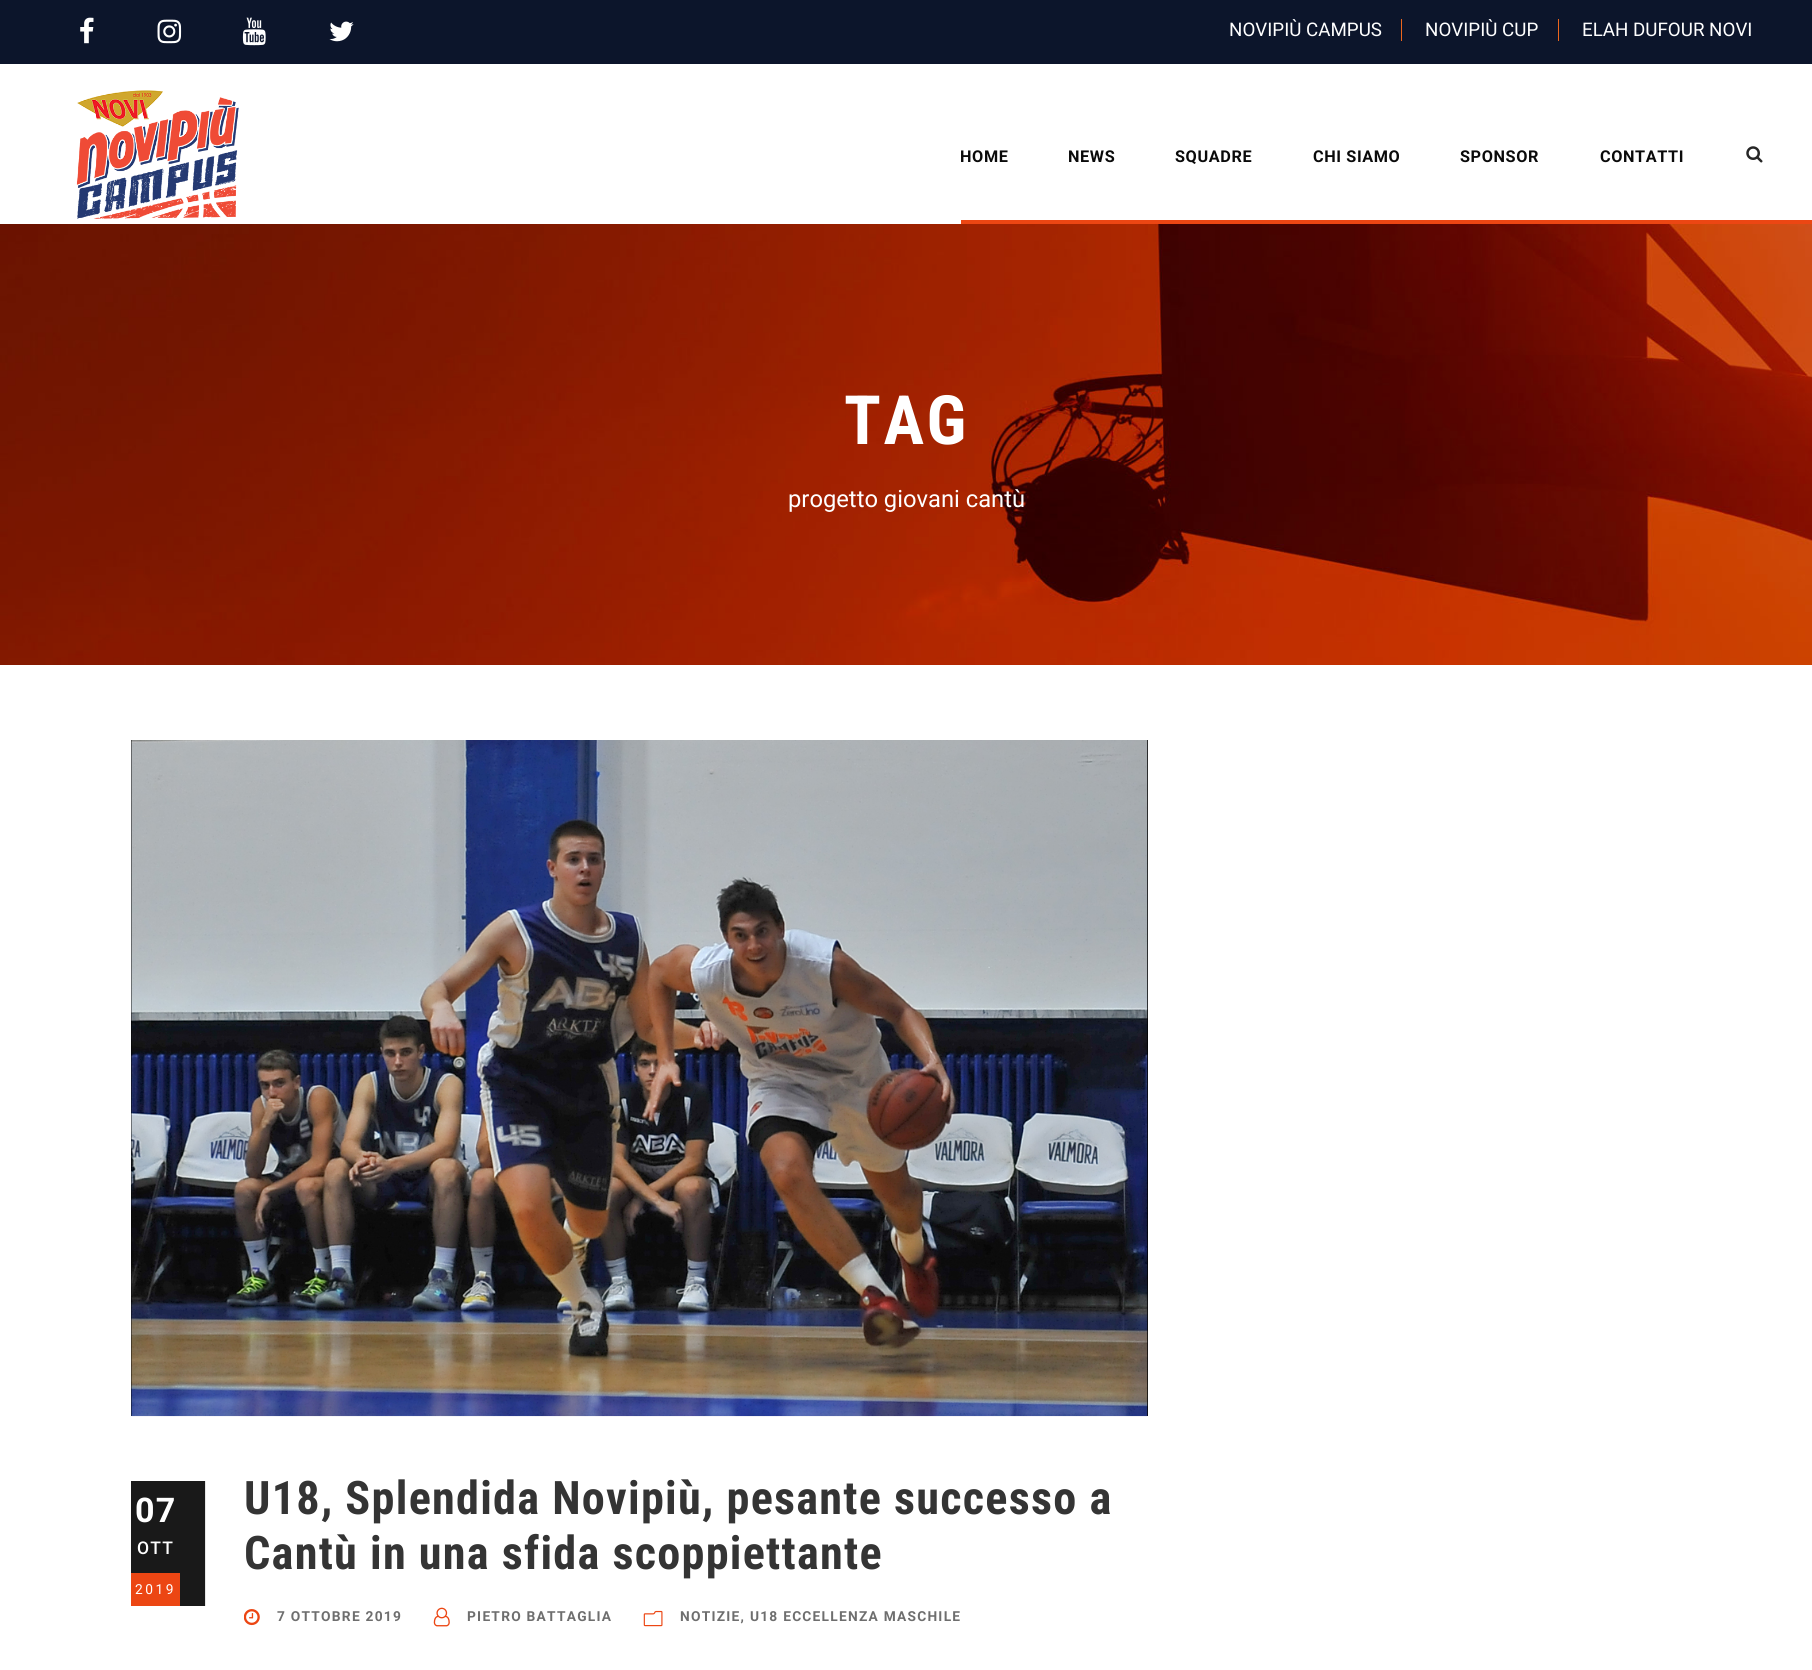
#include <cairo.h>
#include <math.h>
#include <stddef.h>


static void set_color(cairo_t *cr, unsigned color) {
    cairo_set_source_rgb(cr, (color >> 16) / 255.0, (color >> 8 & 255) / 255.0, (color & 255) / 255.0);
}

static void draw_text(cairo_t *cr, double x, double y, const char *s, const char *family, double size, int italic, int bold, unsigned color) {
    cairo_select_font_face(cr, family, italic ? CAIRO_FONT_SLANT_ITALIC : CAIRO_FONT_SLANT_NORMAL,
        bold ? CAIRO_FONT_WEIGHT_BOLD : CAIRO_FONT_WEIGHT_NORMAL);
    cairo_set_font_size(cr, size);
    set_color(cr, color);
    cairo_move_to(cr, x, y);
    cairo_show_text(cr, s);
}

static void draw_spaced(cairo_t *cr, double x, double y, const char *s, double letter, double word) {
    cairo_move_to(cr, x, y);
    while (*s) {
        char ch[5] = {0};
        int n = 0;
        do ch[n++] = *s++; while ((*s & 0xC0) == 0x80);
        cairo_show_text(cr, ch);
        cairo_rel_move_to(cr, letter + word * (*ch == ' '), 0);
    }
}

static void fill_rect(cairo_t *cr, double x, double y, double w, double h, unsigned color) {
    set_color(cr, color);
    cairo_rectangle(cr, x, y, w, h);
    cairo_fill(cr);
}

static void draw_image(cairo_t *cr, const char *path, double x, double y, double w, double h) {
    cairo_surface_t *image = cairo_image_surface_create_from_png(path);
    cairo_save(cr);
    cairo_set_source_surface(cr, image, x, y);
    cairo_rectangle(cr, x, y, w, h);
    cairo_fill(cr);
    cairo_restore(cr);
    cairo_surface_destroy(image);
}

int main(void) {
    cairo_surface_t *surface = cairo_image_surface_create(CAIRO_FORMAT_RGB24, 1812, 1670);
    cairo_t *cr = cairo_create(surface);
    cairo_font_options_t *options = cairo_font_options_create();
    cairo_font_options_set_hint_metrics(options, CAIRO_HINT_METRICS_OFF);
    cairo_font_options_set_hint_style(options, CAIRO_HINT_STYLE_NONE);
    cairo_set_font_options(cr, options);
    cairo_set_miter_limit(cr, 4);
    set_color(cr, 0xFFFFFF);
    cairo_paint(cr);
    fill_rect(cr, 0, 0, 1812, 64, 0x0C152B);
    draw_image(cr, "assets/img1.png", 80, 17, 14, 27);
    draw_image(cr, "assets/img2.png", 157, 19, 25, 25);
    draw_image(cr, "assets/img3.png", 242, 17, 24, 29);
    draw_image(cr, "assets/img4.png", 329, 21, 25, 21);
    draw_text(cr, 1229, 36, "NOVIPIÙ CAMPUS", "Roboto", 18.75, 0, 0, 0xFFFFFF);
    fill_rect(cr, 1401, 19, 1, 22, 0xEC661D);
    draw_text(cr, 1425, 36, "NOVIPIÙ CUP", "Roboto", 18.75, 0, 0, 0xFFFFFF);
    fill_rect(cr, 1558, 19, 1, 22, 0xEC661D);
    draw_text(cr, 1582, 36, "ELAH DUFOUR NOVI", "Roboto", 18.75, 0, 0, 0xFFFFFF);
    draw_image(cr, "assets/img5.png", 76, 90, 163, 129);
    cairo_select_font_face(cr, "Roboto", CAIRO_FONT_SLANT_NORMAL, CAIRO_FONT_WEIGHT_BOLD);
    cairo_set_font_size(cr, 16.25);
    set_color(cr, 0x0A0A0A);
    draw_spaced(cr, 960, 162, "HOME", 0.6, 0);
    draw_spaced(cr, 1068, 162, "NEWS", 0.6, 0);
    draw_spaced(cr, 1175, 162, "SQUADRE", 0.6, 0);
    draw_spaced(cr, 1313, 162, "CHI SIAMO", 0.6, 0);
    draw_spaced(cr, 1460, 162, "SPONSOR", 0.6, 0);
    draw_spaced(cr, 1600, 162, "CONTATTI", 0.6, 0);
    draw_image(cr, "assets/img6.png", 1746, 146, 17, 17);
    fill_rect(cr, 961, 220, 851, 4, 0xEC4613);
    draw_image(cr, "assets/img7.png", 0, 224, 1812, 441);
    cairo_select_font_face(cr, "Roboto Condensed", CAIRO_FONT_SLANT_NORMAL, CAIRO_FONT_WEIGHT_BOLD);
    cairo_set_font_size(cr, 68);
    set_color(cr, 0xFFFFFF);
    draw_spaced(cr, 844, 444, "TAG", 2.5, 0);
    draw_text(cr, 788, 507, "progetto giovani cantù", "Roboto", 23.75, 0, 0, 0xFFFFFF);
    fill_rect(cr, 131, 740, 1017, 676, 0x000000);
    draw_image(cr, "assets/img8.png", 131, 740, 1017, 677);
    fill_rect(cr, 131, 1481, 74, 125, 0x191919);
    fill_rect(cr, 205, 1481, 1, 125, 0xE6E6E6);
    cairo_select_font_face(cr, "Roboto", CAIRO_FONT_SLANT_NORMAL, CAIRO_FONT_WEIGHT_BOLD);
    cairo_set_font_size(cr, 34);
    set_color(cr, 0xFFFFFF);
    draw_spaced(cr, 135, 1522, "07", 1.25, 0);
    cairo_select_font_face(cr, "Roboto Medium", CAIRO_FONT_SLANT_NORMAL, CAIRO_FONT_WEIGHT_NORMAL);
    cairo_set_font_size(cr, 17.5);
    draw_spaced(cr, 137, 1554, "OTT", 1.25, 0);
    fill_rect(cr, 131, 1573, 49, 33, 0xEC4613);
    cairo_select_font_face(cr, "Roboto", CAIRO_FONT_SLANT_NORMAL, CAIRO_FONT_WEIGHT_NORMAL);
    cairo_set_font_size(cr, 13.75);
    set_color(cr, 0xFFFFFF);
    draw_spaced(cr, 135, 1594, "2019", 2.5, 0);
    cairo_select_font_face(cr, "Roboto Condensed", CAIRO_FONT_SLANT_NORMAL, CAIRO_FONT_WEIGHT_BOLD);
    cairo_set_font_size(cr, 46.25);
    set_color(cr, 0x343434);
    draw_spaced(cr, 244, 1514, "U18, Splendida Novipiù, pesante successo a", 1.25, 0);
    draw_spaced(cr, 244, 1569, "Cantù in una sfida scoppiettante", 1.25, 0);
    draw_image(cr, "assets/img9.png", 244, 1609, 16, 17);
    cairo_select_font_face(cr, "Roboto", CAIRO_FONT_SLANT_NORMAL, CAIRO_FONT_WEIGHT_BOLD);
    cairo_set_font_size(cr, 13.75);
    set_color(cr, 0x6E6E6E);
    draw_spaced(cr, 277, 1621, "7 OTTOBRE 2019", 1.25, 0);
    draw_image(cr, "assets/img10.png", 433, 1607, 17, 20);
    draw_spaced(cr, 467, 1621, "PIETRO BATTAGLIA", 1.25, 0);
    draw_image(cr, "assets/img11.png", 643, 1610, 20, 17);
    draw_spaced(cr, 680, 1621, "NOTIZIE, U18 ECCELLENZA MASCHILE", 1.25, 0);
    cairo_surface_write_to_png(surface, "output.png");
    cairo_font_options_destroy(options);
    cairo_destroy(cr);
    cairo_surface_destroy(surface);
    return 0;
}
